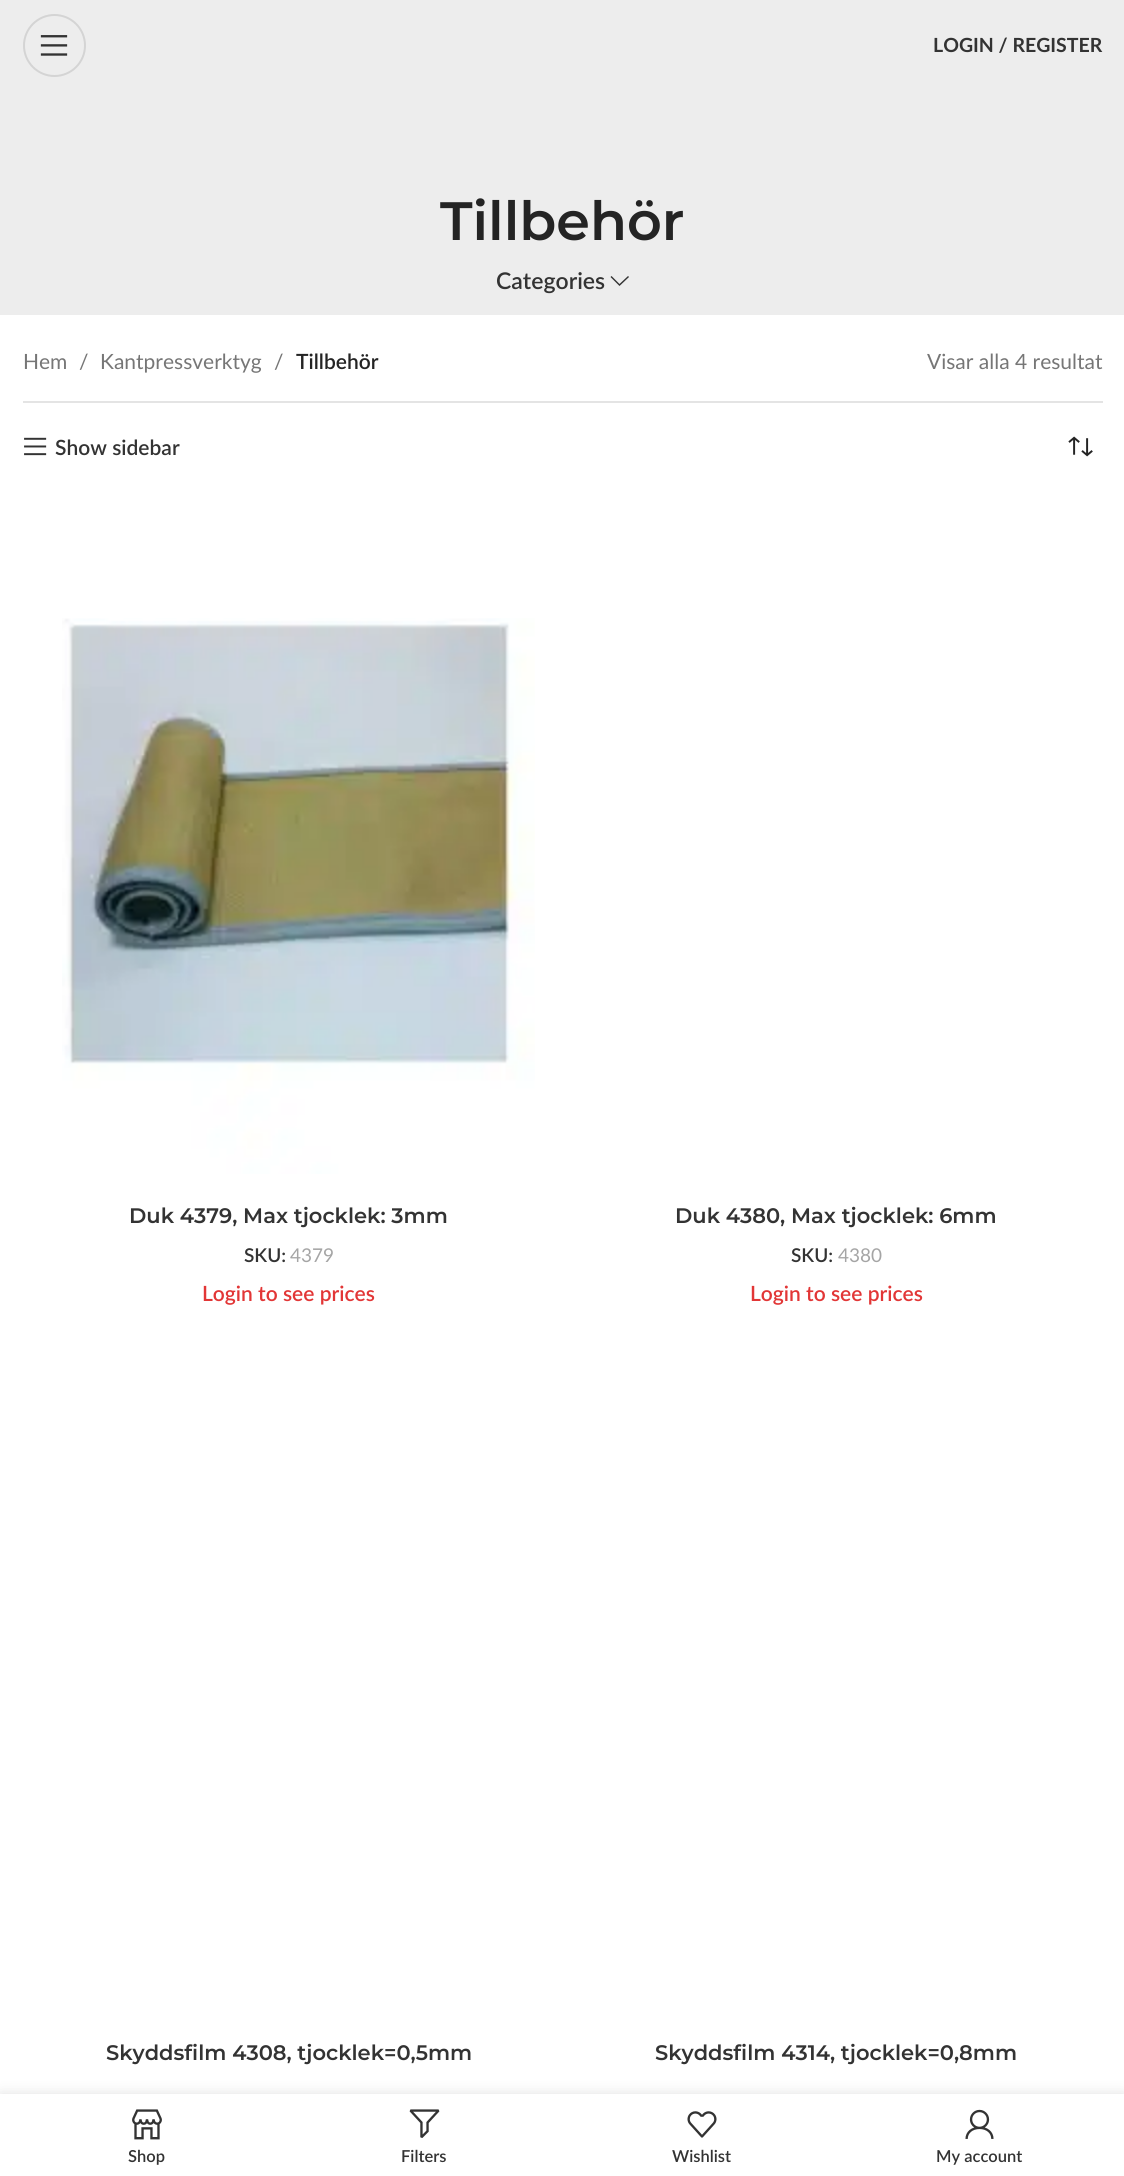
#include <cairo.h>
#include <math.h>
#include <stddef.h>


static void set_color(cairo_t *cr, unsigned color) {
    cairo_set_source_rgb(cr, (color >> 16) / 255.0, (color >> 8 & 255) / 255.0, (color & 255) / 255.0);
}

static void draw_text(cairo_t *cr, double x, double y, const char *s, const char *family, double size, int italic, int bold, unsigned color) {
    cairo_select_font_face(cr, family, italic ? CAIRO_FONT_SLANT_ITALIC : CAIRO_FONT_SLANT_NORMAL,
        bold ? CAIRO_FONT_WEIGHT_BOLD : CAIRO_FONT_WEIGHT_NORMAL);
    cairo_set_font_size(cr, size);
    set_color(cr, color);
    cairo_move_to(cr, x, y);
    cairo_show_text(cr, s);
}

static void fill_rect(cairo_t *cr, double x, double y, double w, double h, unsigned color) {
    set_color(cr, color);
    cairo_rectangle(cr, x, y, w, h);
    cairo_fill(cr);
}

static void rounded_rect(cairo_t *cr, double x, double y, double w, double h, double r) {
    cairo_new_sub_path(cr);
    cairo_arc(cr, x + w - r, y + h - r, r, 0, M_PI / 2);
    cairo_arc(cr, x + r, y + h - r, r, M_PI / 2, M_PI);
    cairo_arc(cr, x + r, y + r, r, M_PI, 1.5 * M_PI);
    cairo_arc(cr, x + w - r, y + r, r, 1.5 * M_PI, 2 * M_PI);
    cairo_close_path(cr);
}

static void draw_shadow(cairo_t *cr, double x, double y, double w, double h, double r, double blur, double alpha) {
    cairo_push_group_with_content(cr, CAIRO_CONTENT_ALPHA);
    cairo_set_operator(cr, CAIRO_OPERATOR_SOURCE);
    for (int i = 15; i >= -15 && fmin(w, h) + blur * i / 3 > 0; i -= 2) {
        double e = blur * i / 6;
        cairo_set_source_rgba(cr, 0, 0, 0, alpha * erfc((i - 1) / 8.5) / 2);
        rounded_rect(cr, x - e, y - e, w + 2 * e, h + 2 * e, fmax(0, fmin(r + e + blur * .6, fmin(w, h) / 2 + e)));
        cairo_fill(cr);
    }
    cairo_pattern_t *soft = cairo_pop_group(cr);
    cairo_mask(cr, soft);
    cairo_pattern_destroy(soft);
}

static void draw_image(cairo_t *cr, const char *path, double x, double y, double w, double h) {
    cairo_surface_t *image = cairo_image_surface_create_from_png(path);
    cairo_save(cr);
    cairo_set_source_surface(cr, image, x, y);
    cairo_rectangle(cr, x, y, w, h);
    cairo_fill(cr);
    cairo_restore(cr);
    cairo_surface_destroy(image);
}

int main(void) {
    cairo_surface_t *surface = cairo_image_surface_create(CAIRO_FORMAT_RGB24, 1124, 2176);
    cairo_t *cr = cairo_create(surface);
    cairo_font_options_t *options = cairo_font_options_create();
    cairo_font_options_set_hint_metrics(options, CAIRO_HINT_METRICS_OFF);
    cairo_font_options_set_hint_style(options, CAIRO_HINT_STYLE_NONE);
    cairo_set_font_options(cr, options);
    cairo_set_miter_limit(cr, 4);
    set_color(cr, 0xFFFFFF);
    cairo_paint(cr);
    fill_rect(cr, 0, 0, 1124, 315, 0xEDEDED);
    cairo_arc(cr, 54.5, 45.5, 30.5, 0, 2 * M_PI);
    set_color(cr, 0xD4D4D4);
    cairo_stroke(cr);
    draw_image(cr, "assets/img1.png", 40, 35, 28, 21);
    draw_text(cr, 933, 52, "LOGIN / REGISTER", "Lato", 19.5, 0, 1, 0x333333);
    draw_text(cr, 440, 240, "Tillbehör", "Montserrat SemiBold", 54, 0, 0, 0x242424);
    draw_text(cr, 496, 289, "Categories", "Lato SemiBold", 23, 0, 0, 0x333333);
    cairo_new_path(cr);
    cairo_move_to(cr, 628, 276);
    cairo_line_to(cr, 619.5, 284);
    cairo_line_to(cr, 611.5, 276);
    cairo_line_to(cr, 610.5, 277);
    cairo_line_to(cr, 619.5, 286);
    cairo_line_to(cr, 629, 277);
    cairo_close_path(cr);
    cairo_fill(cr);
    fill_rect(cr, 23, 401, 1080, 2, 0xE4E4E4);
    draw_text(cr, 23, 369, "Hem", "Lato", 21, 0, 0, 0x767676);
    draw_text(cr, 79, 369, "/", "Lato", 21, 0, 0, 0x767676);
    draw_text(cr, 100, 369, "Kantpressverktyg", "Lato", 21, 0, 0, 0x767676);
    draw_text(cr, 274, 369, "/", "Lato", 21, 0, 0, 0x767676);
    draw_text(cr, 296, 369, "Tillbehör", "Lato SemiBold", 21, 0, 0, 0x242424);
    draw_text(cr, 927, 369, "Visar alla 4 resultat", "Lato", 21, 0, 0, 0x767676);
    draw_image(cr, "assets/img2.png", 24, 437, 23, 19);
    draw_text(cr, 55, 455, "Show sidebar", "Lato SemiBold", 21, 0, 0, 0x333333);
    draw_image(cr, "assets/img3.png", 1068, 436, 25, 21);
    draw_image(cr, "assets/img4.png", 62, 618, 473, 556);
    draw_text(cr, 129, 1223, "Duk 4379, Max tjocklek: 3mm", "Montserrat SemiBold", 21, 0, 0, 0x333333);
    draw_text(cr, 244, 1262, "SKU:", "Lato SemiBold", 19, 0, 0, 0x333333);
    draw_text(cr, 290, 1262, "4379", "Lato", 19, 0, 0, 0xA5A5A5);
    draw_text(cr, 202, 1301, "Login to see prices", "Lato SemiBold", 21, 0, 0, 0xE23636);
    draw_text(cr, 675, 1223, "Duk 4380, Max tjocklek: 6mm", "Montserrat SemiBold", 21, 0, 0, 0x333333);
    draw_text(cr, 791, 1262, "SKU:", "Lato SemiBold", 19, 0, 0, 0x333333);
    draw_text(cr, 838, 1262, "4380", "Lato", 19, 0, 0, 0xA5A5A5);
    draw_text(cr, 750, 1301, "Login to see prices", "Lato SemiBold", 21, 0, 0, 0xE23636);
    draw_text(cr, 106, 2060, "Skyddsfilm 4308, tjocklek=0,5mm", "Montserrat SemiBold", 21, 0, 0, 0x333333);
    draw_text(cr, 655, 2060, "Skyddsfilm 4314, tjocklek=0,8mm", "Montserrat SemiBold", 21, 0, 0, 0x333333);
    set_color(cr, 0x000000);
    draw_shadow(cr, 0, 2094, 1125, 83, 0, 7, 0.12);
    fill_rect(cr, 0, 2094, 1124, 82, 0xFFFFFF);
    draw_image(cr, "assets/img5.png", 132, 2109, 30, 31);
    draw_text(cr, 128, 2162, "Shop", "Lato SemiBold", 16.5, 0, 0, 0x333333);
    draw_image(cr, "assets/img6.png", 409, 2109, 31, 29);
    draw_text(cr, 401, 2162, "Filters", "Lato SemiBold", 16.5, 0, 0, 0x333333);
    draw_image(cr, "assets/img7.png", 687, 2111, 30, 27);
    draw_text(cr, 672, 2162, "Wishlist", "Lato SemiBold", 16.5, 0, 0, 0x333333);
    draw_image(cr, "assets/img8.png", 965, 2109, 29, 30);
    draw_text(cr, 936, 2162, "My account", "Lato SemiBold", 16.5, 0, 0, 0x333333);
    cairo_surface_write_to_png(surface, "output.png");
    cairo_font_options_destroy(options);
    cairo_destroy(cr);
    cairo_surface_destroy(surface);
    return 0;
}
